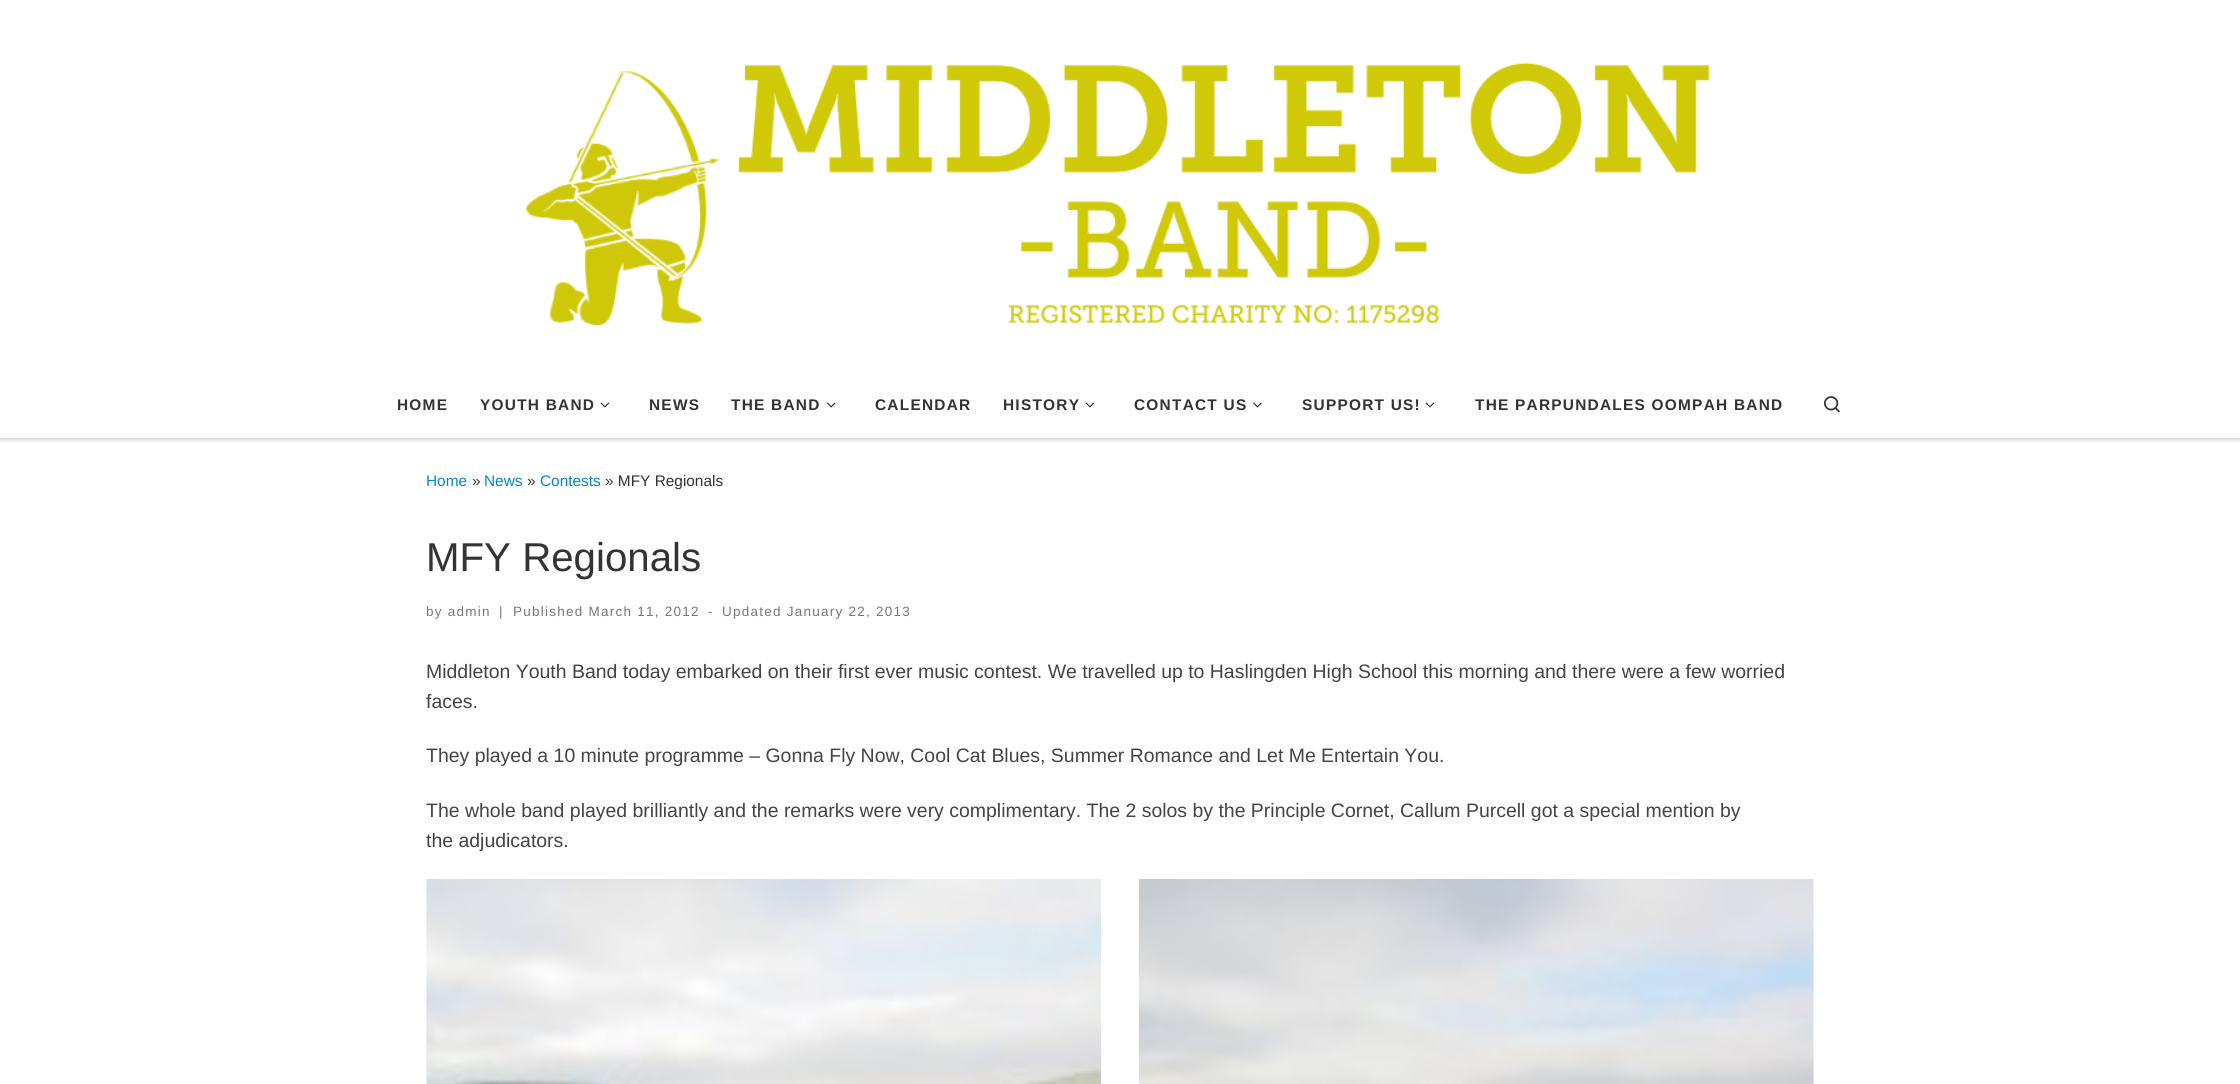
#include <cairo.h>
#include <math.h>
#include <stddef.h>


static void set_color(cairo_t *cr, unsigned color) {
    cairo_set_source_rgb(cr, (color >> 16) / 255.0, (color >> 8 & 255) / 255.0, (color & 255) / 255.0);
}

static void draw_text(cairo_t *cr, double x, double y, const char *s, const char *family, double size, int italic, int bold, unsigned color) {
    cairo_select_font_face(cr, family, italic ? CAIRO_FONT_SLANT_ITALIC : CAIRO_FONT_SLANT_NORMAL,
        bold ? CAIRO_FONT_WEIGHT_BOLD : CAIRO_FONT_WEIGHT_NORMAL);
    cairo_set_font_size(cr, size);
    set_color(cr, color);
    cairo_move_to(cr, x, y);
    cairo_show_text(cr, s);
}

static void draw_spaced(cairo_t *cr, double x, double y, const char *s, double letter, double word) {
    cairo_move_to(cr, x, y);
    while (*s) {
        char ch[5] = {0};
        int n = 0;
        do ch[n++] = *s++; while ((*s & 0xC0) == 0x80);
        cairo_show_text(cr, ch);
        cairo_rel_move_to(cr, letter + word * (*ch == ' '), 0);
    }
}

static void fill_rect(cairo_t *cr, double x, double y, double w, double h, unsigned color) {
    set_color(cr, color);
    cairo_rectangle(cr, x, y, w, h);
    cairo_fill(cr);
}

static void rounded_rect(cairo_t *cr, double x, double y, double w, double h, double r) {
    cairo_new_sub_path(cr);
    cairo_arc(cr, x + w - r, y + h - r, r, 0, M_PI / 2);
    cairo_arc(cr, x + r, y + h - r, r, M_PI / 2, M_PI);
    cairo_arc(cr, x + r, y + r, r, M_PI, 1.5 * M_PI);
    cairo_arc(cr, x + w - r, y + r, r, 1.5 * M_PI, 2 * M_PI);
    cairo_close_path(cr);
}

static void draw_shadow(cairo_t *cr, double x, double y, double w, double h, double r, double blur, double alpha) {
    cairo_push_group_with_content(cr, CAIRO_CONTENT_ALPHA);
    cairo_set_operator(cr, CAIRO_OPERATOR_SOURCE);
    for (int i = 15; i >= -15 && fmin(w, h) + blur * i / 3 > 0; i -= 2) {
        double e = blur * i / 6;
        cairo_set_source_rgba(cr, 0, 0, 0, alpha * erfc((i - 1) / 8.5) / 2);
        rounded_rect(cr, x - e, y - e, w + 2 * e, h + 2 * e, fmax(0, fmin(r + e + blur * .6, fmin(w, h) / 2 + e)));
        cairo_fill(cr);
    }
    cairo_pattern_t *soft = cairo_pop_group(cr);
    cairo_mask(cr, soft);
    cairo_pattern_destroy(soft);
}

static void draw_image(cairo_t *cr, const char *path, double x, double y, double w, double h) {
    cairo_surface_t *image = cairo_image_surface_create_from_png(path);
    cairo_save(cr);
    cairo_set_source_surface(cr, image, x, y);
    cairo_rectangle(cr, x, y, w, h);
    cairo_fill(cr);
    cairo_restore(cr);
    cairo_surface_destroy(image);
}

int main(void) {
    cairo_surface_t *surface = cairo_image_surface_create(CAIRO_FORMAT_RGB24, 2240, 1084);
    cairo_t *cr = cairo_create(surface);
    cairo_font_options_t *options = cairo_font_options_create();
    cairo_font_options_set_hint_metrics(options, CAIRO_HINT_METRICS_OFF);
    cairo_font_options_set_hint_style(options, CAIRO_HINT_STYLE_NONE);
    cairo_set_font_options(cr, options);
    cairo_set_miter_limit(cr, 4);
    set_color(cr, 0xFFFFFF);
    cairo_paint(cr);
    set_color(cr, 0x666666);
    draw_shadow(cr, 0, 3, 2240, 438, 0, 1, 0.08);
    fill_rect(cr, 0, 438, 2240, 1, 0xEFEFEF);
    set_color(cr, 0x000000);
    draw_shadow(cr, 0, 0, 2240, 438, 0, 3, 0.2);
    fill_rect(cr, 0, 0, 2240, 438, 0xFFFFFF);
    draw_image(cr, "assets/img1.png", 526, 62, 1183, 265);
    cairo_select_font_face(cr, "Liberation Sans", CAIRO_FONT_SLANT_NORMAL, CAIRO_FONT_WEIGHT_BOLD);
    cairo_set_font_size(cr, 15.4);
    set_color(cr, 0x333333);
    draw_spaced(cr, 397, 410, "HOME", 1.25, 0);
    draw_spaced(cr, 480, 410, "YOUTH BAND", 1.25, 0);
    draw_image(cr, "assets/img2.png", 600, 402, 10, 6);
    draw_spaced(cr, 649, 410, "NEWS", 1.25, 0);
    draw_spaced(cr, 731, 410, "THE BAND", 1.25, 0);
    draw_image(cr, "assets/img3.png", 827, 402, 9, 6);
    draw_spaced(cr, 875, 410, "CALENDAR", 1.25, 0);
    draw_spaced(cr, 1003, 410, "HISTORY", 1.25, 0);
    draw_image(cr, "assets/img2.png", 1085, 402, 10, 6);
    draw_spaced(cr, 1134, 410, "CONTACT US", 1.25, 0);
    draw_image(cr, "assets/img4.png", 1253, 402, 9, 6);
    draw_spaced(cr, 1302, 410, "SUPPORT US!", 1.25, 0);
    draw_image(cr, "assets/img2.png", 1425, 402, 10, 6);
    draw_spaced(cr, 1475, 410, "THE PARPUNDALES OOMPAH BAND", 1.25, 0);
    draw_image(cr, "assets/img5.png", 1824, 396, 16, 17);
    draw_text(cr, 426, 486, "Home", "Liberation Sans", 15.4, 0, 0, 0x0088CC);
    draw_text(cr, 472, 486, "»", "Liberation Sans", 15.4, 0, 0, 0x333333);
    draw_text(cr, 484, 486, "News", "Liberation Sans", 15.4, 0, 0, 0x0088CC);
    draw_text(cr, 527, 486, "»", "Liberation Sans", 15.4, 0, 0, 0x333333);
    draw_text(cr, 540, 486, "Contests", "Liberation Sans", 15.4, 0, 0, 0x0088CC);
    draw_text(cr, 605, 486, "» MFY Regionals", "Liberation Sans", 15.4, 0, 0, 0x333333);
    draw_text(cr, 426, 571, "MFY Regionals", "Liberation Sans", 40.25, 0, 0, 0x333333);
    cairo_set_font_size(cr, 13.5);
    set_color(cr, 0x777777);
    draw_spaced(cr, 426, 616, "by admin", 1.25, 0);
    draw_spaced(cr, 499, 616, "|", 1.25, 0);
    draw_spaced(cr, 513, 616, "Published March 11, 2012", 1.25, 0);
    draw_spaced(cr, 708, 616, "-", 1.25, 0);
    draw_spaced(cr, 722, 616, "Updated January 22, 2013", 1.25, 0);
    draw_text(cr, 426, 678, "Middleton Youth Band today embarked on their first ever music contest. We travelled up to Haslingden High School this morning and there were a few worried", "Liberation Sans", 19.45, 0, 0, 0x444444);
    draw_text(cr, 426, 708, "faces.", "Liberation Sans", 19.45, 0, 0, 0x444444);
    draw_text(cr, 426, 762, "They played a 10 minute programme – Gonna Fly Now, Cool Cat Blues, Summer Romance and Let Me Entertain You.", "Liberation Sans", 19.45, 0, 0, 0x444444);
    draw_text(cr, 426, 817, "The whole band played brilliantly and the remarks were very complimentary. The 2 solos by the Principle Cornet, Callum Purcell got a special mention by", "Liberation Sans", 19.45, 0, 0, 0x444444);
    draw_text(cr, 426, 847, "the adjudicators.", "Liberation Sans", 19.45, 0, 0, 0x444444);
    draw_image(cr, "assets/img6.png", 426, 879, 676, 205);
    draw_image(cr, "assets/img7.png", 1139, 878, 675, 206);
    cairo_surface_write_to_png(surface, "output.png");
    cairo_font_options_destroy(options);
    cairo_destroy(cr);
    cairo_surface_destroy(surface);
    return 0;
}
